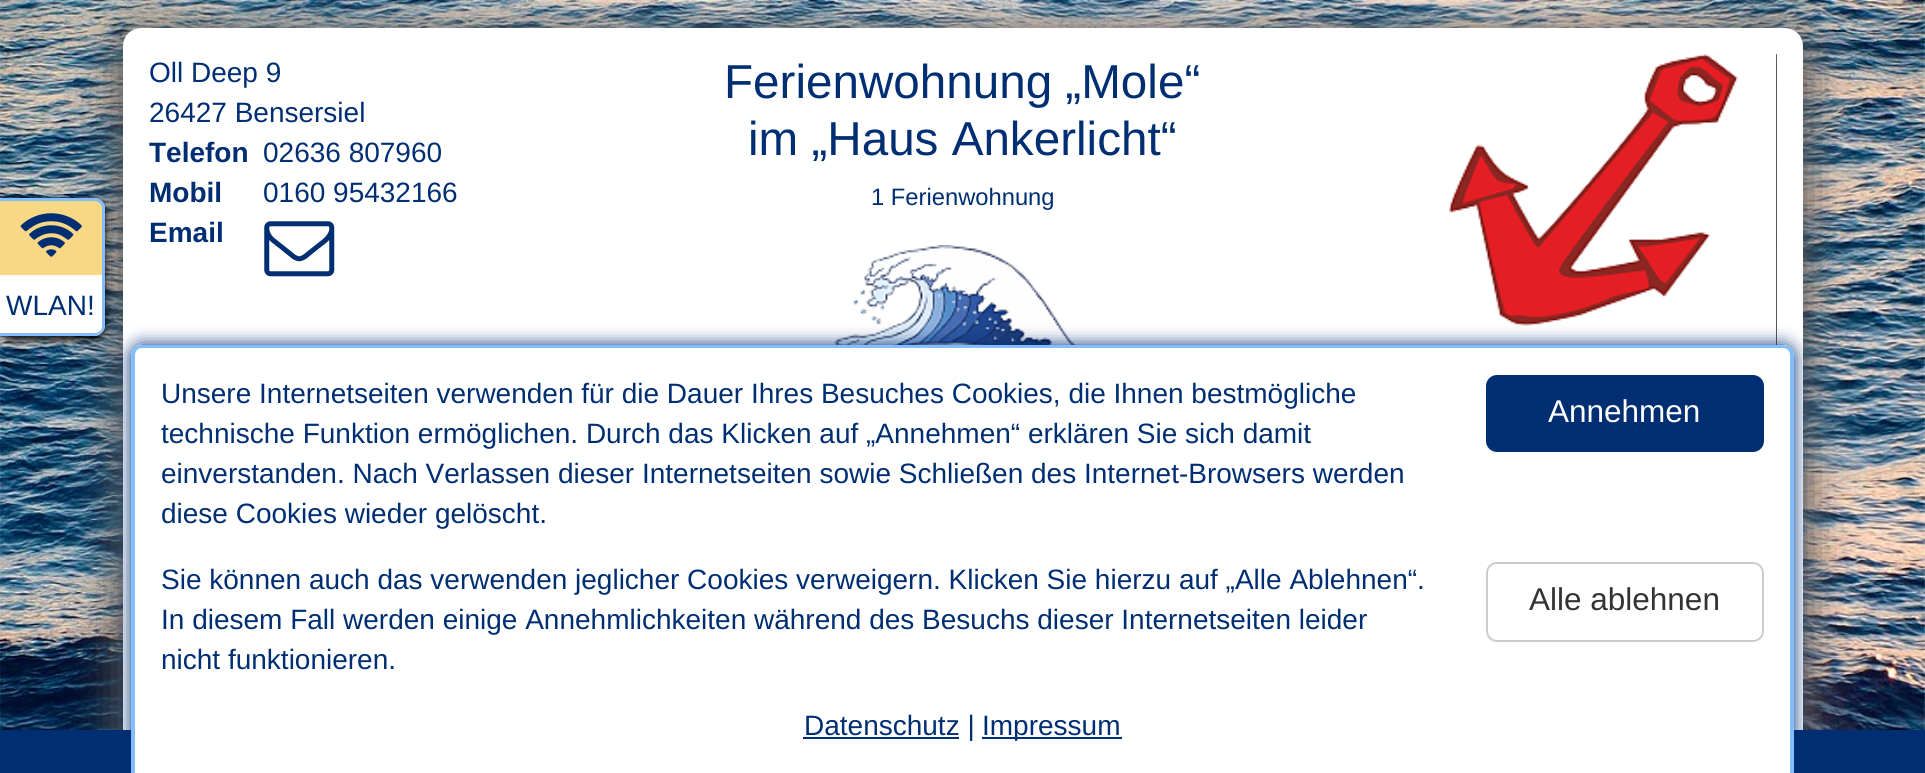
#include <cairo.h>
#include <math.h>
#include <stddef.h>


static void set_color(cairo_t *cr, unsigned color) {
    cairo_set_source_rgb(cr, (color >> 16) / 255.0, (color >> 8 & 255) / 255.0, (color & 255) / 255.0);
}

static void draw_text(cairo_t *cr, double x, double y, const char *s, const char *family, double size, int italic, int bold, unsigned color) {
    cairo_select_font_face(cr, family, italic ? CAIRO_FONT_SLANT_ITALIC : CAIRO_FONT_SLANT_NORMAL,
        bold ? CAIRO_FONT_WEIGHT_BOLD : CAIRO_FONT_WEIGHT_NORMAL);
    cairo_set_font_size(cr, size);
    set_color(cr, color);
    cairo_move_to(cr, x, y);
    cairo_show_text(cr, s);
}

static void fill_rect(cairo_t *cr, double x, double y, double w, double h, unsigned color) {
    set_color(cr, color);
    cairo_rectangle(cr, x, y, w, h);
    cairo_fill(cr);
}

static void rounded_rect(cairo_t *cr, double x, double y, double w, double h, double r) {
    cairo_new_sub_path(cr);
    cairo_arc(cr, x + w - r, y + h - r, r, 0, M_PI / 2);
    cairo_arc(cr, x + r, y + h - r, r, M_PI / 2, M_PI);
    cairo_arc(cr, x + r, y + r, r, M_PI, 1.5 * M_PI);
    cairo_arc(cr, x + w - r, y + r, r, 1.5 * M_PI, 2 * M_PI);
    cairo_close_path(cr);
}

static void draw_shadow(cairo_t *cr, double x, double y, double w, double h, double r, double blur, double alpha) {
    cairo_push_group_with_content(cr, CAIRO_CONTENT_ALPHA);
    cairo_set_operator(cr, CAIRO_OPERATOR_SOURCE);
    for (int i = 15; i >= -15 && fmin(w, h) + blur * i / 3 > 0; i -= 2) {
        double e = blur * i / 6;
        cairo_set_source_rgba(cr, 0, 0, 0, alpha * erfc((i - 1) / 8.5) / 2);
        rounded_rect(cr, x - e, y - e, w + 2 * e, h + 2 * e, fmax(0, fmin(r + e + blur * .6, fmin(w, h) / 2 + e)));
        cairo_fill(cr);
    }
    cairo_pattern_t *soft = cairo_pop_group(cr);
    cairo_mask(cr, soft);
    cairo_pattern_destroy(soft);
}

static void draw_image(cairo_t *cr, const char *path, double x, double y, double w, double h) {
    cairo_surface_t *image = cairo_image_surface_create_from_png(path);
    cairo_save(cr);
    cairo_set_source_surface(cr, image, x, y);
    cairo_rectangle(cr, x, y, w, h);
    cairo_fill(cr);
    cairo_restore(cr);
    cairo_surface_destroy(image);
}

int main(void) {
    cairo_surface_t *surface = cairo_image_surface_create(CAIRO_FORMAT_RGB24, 1925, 773);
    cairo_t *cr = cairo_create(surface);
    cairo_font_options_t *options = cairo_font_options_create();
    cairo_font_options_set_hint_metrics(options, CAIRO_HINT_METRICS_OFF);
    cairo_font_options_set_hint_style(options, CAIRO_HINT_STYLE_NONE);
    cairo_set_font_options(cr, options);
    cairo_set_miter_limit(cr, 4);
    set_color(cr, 0xFFFFFF);
    cairo_paint(cr);
    draw_image(cr, "assets/img1.png", 0, 0, 1925, 730);
    set_color(cr, 0x555555);
    draw_shadow(cr, 114, 28, 1697, 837, 26, 22, 1);
    rounded_rect(cr, 136, 41, 1654, 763, 5);
    set_color(cr, 0xFFFFFF);
    cairo_set_line_width(cr, 26);
    cairo_stroke(cr);
    fill_rect(cr, 149, 54, 1627, 291, 0xFFFFFF);
    draw_text(cr, 149, 82, "Oll Deep 9", "Liberation Sans", 28, 0, 0, 0x002E72);
    draw_text(cr, 149, 122, "26427 Bensersiel", "Liberation Sans", 28, 0, 0, 0x002E72);
    draw_text(cr, 149, 162, "Telefon", "Liberation Sans", 28, 0, 1, 0x002E72);
    draw_text(cr, 263, 162, "02636 807960", "Liberation Sans", 28, 0, 0, 0x002E72);
    draw_text(cr, 149, 202, "Mobil", "Liberation Sans", 28, 0, 1, 0x002E72);
    draw_text(cr, 263, 202, "0160 95432166", "Liberation Sans", 28, 0, 0, 0x002E72);
    draw_text(cr, 149, 242, "Email", "Liberation Sans", 28, 0, 1, 0x002E72);
    draw_image(cr, "assets/img2.png", 264, 221, 71, 56);
    draw_text(cr, 724, 98, "Ferienwohnung „Mole“", "Liberation Sans", 47.6, 0, 0, 0x002E72);
    draw_text(cr, 748, 155, "im „Haus Ankerlicht“", "Liberation Sans", 47.6, 0, 0, 0x002E72);
    draw_text(cr, 871, 205, "1 Ferienwohnung", "Liberation Sans", 23.75, 0, 0, 0x002E72);
    draw_image(cr, "assets/img3.png", 834, 245, 245, 100);
    draw_image(cr, "assets/img4.png", 1449, 54, 289, 272);
    set_color(cr, 0x000000);
    draw_shadow(cr, 0, 201, 105, 139, 11, 4.5, 1);
    set_color(cr, 0xF9D885);
    cairo_new_path(cr);
    cairo_move_to(cr, 0, 198);
    cairo_line_to(cr, 94, 198);
    cairo_curve_to(cr, 100, 198, 105, 203, 105, 209);
    cairo_line_to(cr, 105, 325);
    cairo_curve_to(cr, 105, 331, 100, 336, 94, 336);
    cairo_line_to(cr, 0, 336);
    cairo_close_path(cr);
    cairo_fill(cr);
    set_color(cr, 0x84BDFF);
    cairo_set_fill_rule(cr, CAIRO_FILL_RULE_EVEN_ODD);
    cairo_new_path(cr);
    cairo_move_to(cr, 0, 198);
    cairo_line_to(cr, 94, 198);
    cairo_curve_to(cr, 100, 198, 105, 202, 105, 208);
    cairo_line_to(cr, 105, 326);
    cairo_curve_to(cr, 105, 331, 100, 336, 94, 336);
    cairo_line_to(cr, 0, 336);
    cairo_close_path(cr);
    cairo_move_to(cr, 0, 201);
    cairo_line_to(cr, 94, 201);
    cairo_curve_to(cr, 98, 201, 102, 204, 102, 208);
    cairo_line_to(cr, 102, 326);
    cairo_curve_to(cr, 102, 329, 98, 332, 94, 332);
    cairo_line_to(cr, 0, 332);
    cairo_close_path(cr);
    cairo_fill(cr);
    draw_image(cr, "assets/img5.png", 20, 213, 62, 44);
    set_color(cr, 0xFFFFFF);
    cairo_new_path(cr);
    cairo_move_to(cr, 0, 275);
    cairo_line_to(cr, 102, 275);
    cairo_line_to(cr, 102, 326);
    cairo_curve_to(cr, 102, 330, 99, 333, 95, 333);
    cairo_line_to(cr, 0, 333);
    cairo_close_path(cr);
    cairo_fill(cr);
    draw_text(cr, 6, 315, "WLAN!", "Liberation Sans", 28, 0, 0, 0x002E72);
    fill_rect(cr, 0, 730, 131, 43, 0x002E72);
    fill_rect(cr, 1794, 730, 131, 43, 0x002E72);
    set_color(cr, 0x002E72);
    draw_shadow(cr, 131, 345, 1663, 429, 11, 9, 1);
    set_color(cr, 0xFFFFFF);
    cairo_new_path(cr);
    cairo_move_to(cr, 142, 345);
    cairo_line_to(cr, 1783, 345);
    cairo_curve_to(cr, 1789, 345, 1794, 350, 1794, 356);
    cairo_line_to(cr, 1794, 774);
    cairo_line_to(cr, 131, 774);
    cairo_line_to(cr, 131, 356);
    cairo_curve_to(cr, 131, 350, 136, 345, 142, 345);
    cairo_close_path(cr);
    cairo_fill(cr);
    set_color(cr, 0x84BDFF);
    cairo_new_path(cr);
    cairo_move_to(cr, 142, 345);
    cairo_line_to(cr, 1783, 345);
    cairo_curve_to(cr, 1789, 345, 1794, 349, 1794, 355);
    cairo_line_to(cr, 1794, 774);
    cairo_line_to(cr, 131, 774);
    cairo_line_to(cr, 131, 355);
    cairo_curve_to(cr, 131, 349, 136, 345, 142, 345);
    cairo_close_path(cr);
    cairo_move_to(cr, 142, 348);
    cairo_line_to(cr, 1783, 348);
    cairo_curve_to(cr, 1787, 348, 1790, 351, 1790, 355);
    cairo_line_to(cr, 1790, 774);
    cairo_line_to(cr, 135, 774);
    cairo_line_to(cr, 135, 355);
    cairo_curve_to(cr, 135, 351, 138, 348, 142, 348);
    cairo_close_path(cr);
    cairo_fill(cr);
    draw_text(cr, 161, 403, "Unsere Internetseiten verwenden für die Dauer Ihres Besuches Cookies, die Ihnen bestmögliche", "Liberation Sans", 28, 0, 0, 0x002E72);
    draw_text(cr, 161, 443, "technische Funktion ermöglichen. Durch das Klicken auf „Annehmen“ erklären Sie sich damit", "Liberation Sans", 28, 0, 0, 0x002E72);
    draw_text(cr, 161, 483, "einverstanden. Nach Verlassen dieser Internetseiten sowie Schließen des Internet-Browsers werden", "Liberation Sans", 28, 0, 0, 0x002E72);
    draw_text(cr, 161, 523, "diese Cookies wieder gelöscht.", "Liberation Sans", 28, 0, 0, 0x002E72);
    rounded_rect(cr, 1486, 375, 278, 77, 11);
    cairo_fill(cr);
    draw_text(cr, 1548, 422, "Annehmen", "Liberation Sans", 31.5, 0, 0, 0xFFFFFF);
    draw_text(cr, 161, 589, "Sie können auch das verwenden jeglicher Cookies verweigern. Klicken Sie hierzu auf „Alle Ablehnen“.", "Liberation Sans", 28, 0, 0, 0x002E72);
    draw_text(cr, 161, 629, "In diesem Fall werden einige Annehmlichkeiten während des Besuchs dieser Internetseiten leider", "Liberation Sans", 28, 0, 0, 0x002E72);
    draw_text(cr, 161, 669, "nicht funktionieren.", "Liberation Sans", 28, 0, 0, 0x002E72);
    rounded_rect(cr, 1487, 563, 276, 78, 10);
    set_color(cr, 0xCCCCCC);
    cairo_set_line_width(cr, 2);
    cairo_stroke(cr);
    draw_text(cr, 1529, 610, "Alle ablehnen", "Liberation Sans", 31.5, 0, 0, 0x333333);
    fill_rect(cr, 803, 737, 156, 2, 0x002E72);
    draw_text(cr, 804, 735, "Datenschutz |", "Liberation Sans", 28, 0, 0, 0x002E72);
    fill_rect(cr, 982, 737, 140, 2, 0x002E72);
    draw_text(cr, 982, 735, "Impressum", "Liberation Sans", 28, 0, 0, 0x002E72);
    cairo_surface_write_to_png(surface, "output.png");
    cairo_font_options_destroy(options);
    cairo_destroy(cr);
    cairo_surface_destroy(surface);
    return 0;
}
